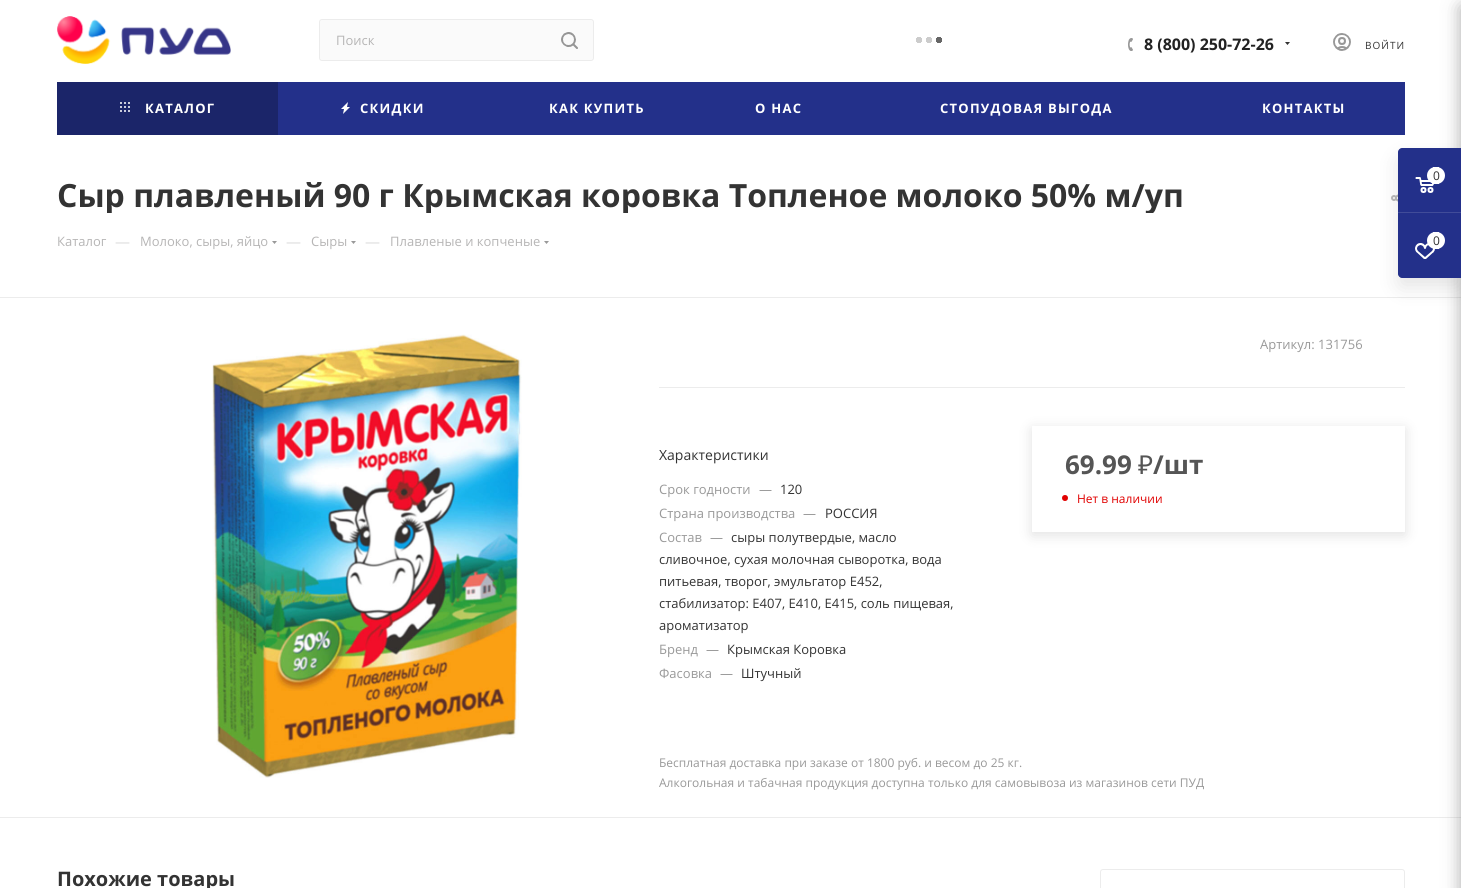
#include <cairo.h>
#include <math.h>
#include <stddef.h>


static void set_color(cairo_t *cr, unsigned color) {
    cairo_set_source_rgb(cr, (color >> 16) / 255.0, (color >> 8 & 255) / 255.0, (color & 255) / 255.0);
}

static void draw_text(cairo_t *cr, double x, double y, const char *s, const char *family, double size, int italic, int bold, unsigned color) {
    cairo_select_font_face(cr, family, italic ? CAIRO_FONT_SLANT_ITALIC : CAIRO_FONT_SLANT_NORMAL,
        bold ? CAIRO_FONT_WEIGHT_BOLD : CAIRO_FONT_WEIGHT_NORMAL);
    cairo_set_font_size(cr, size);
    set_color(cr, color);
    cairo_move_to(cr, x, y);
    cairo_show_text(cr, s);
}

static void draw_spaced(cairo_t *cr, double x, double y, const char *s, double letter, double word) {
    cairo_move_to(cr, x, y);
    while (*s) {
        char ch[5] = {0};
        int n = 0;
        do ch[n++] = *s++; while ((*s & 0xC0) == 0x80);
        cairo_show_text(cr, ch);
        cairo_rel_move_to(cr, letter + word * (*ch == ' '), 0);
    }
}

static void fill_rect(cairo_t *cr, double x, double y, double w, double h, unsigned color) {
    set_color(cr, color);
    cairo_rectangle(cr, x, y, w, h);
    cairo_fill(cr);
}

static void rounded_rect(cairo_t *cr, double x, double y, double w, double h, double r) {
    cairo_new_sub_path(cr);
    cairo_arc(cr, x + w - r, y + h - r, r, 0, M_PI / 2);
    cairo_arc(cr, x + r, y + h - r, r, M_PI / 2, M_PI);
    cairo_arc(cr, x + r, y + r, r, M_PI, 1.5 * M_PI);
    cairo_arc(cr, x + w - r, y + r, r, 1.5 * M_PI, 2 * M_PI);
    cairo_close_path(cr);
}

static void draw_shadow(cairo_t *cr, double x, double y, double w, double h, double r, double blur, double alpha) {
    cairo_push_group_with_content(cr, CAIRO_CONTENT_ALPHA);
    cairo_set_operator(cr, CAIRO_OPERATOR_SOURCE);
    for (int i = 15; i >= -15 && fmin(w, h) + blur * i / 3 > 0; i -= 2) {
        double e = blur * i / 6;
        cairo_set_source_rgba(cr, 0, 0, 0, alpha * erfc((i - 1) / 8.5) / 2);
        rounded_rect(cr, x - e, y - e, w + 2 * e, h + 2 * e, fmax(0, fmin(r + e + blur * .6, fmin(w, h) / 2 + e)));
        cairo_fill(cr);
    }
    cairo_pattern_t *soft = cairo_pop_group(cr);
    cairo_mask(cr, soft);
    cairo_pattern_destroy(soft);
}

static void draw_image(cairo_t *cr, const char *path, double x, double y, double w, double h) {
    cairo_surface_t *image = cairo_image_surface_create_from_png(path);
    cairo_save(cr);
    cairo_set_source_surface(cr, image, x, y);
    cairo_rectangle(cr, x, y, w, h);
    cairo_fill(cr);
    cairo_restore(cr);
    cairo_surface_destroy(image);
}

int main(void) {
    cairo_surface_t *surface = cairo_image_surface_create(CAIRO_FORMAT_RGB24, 1461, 888);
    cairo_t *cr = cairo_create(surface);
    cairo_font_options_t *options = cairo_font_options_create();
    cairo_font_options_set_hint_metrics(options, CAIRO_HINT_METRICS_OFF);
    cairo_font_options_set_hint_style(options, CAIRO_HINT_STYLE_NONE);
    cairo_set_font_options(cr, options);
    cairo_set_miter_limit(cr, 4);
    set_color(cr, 0xFFFFFF);
    cairo_paint(cr);
    draw_image(cr, "assets/img1.png", 57, 16, 174, 48);
    set_color(cr, 0xFAFAFA);
    rounded_rect(cr, 319.5, 19.5, 274, 41, 2.5);
    cairo_fill_preserve(cr);
    set_color(cr, 0xECECEC);
    cairo_set_line_width(cr, 1);
    cairo_stroke(cr);
    draw_text(cr, 336, 45, "Поиск", "Open Sans", 13, 0, 0, 0xB6B5B5);
    draw_image(cr, "assets/img2.png", 561, 32, 17, 17);
    draw_image(cr, "assets/img3.png", 916, 37, 26, 6);
    draw_image(cr, "assets/img4.png", 1128, 38, 5, 13);
    draw_text(cr, 1144, 50, "8 (800) 250-72-26", "Open Sans", 16, 0, 1, 0x222222);
    draw_image(cr, "assets/img5.png", 1285, 42, 5, 3);
    draw_image(cr, "assets/img6.png", 1333, 33, 18, 18);
    cairo_select_font_face(cr, "Open Sans", CAIRO_FONT_SLANT_NORMAL, CAIRO_FONT_WEIGHT_NORMAL);
    cairo_set_font_size(cr, 10);
    set_color(cr, 0x333333);
    draw_spaced(cr, 1365, 49, "ВОЙТИ", 1, 0);
    fill_rect(cr, 278, 82, 1127, 53, 0x23308A);
    fill_rect(cr, 57, 82, 221, 53, 0x1B2569);
    draw_image(cr, "assets/img7.png", 120, 102, 10, 10);
    cairo_select_font_face(cr, "Open Sans", CAIRO_FONT_SLANT_NORMAL, CAIRO_FONT_WEIGHT_BOLD);
    cairo_set_font_size(cr, 13);
    set_color(cr, 0xFFFFFF);
    draw_spaced(cr, 145, 113, "КАТАЛОГ", 1.25, 0);
    draw_image(cr, "assets/img8.png", 341, 102, 9, 12);
    draw_spaced(cr, 360, 113, "СКИДКИ", 1.25, 0);
    draw_spaced(cr, 549, 113, "КАК КУПИТЬ", 1.25, 0);
    draw_spaced(cr, 755, 113, "О НАС", 1.25, 0);
    draw_spaced(cr, 940, 113, "СТОПУДОВАЯ ВЫГОДА", 1.25, 0);
    draw_spaced(cr, 1262, 113, "КОНТАКТЫ", 1.25, 0);
    cairo_save(cr);
    cairo_rectangle(cr, 57, 177, 1302, 36);
    cairo_clip(cr);
    draw_text(cr, 57, 207, "Сыр плавленый 90 г Крымская коровка Топленое молоко 50% м/уп", "Open Sans", 32, 0, 1, 0x333333);
    cairo_restore(cr);
    draw_image(cr, "assets/img9.png", 1391, 194, 7, 8);
    draw_text(cr, 57, 246, "Каталог", "Open Sans", 13, 0, 0, 0xB6B5B5);
    draw_text(cr, 115, 247, "—", "Open Sans", 15, 0, 0, 0xDDDDDD);
    draw_text(cr, 140, 246, "Молоко, сыры, яйцо", "Open Sans", 13, 0, 0, 0xB6B5B5);
    set_color(cr, 0x999999);
    cairo_set_fill_rule(cr, CAIRO_FILL_RULE_EVEN_ODD);
    cairo_new_path(cr);
    cairo_move_to(cr, 272, 241);
    cairo_line_to(cr, 277, 241);
    cairo_line_to(cr, 274.5, 244);
    cairo_close_path(cr);
    cairo_fill(cr);
    draw_text(cr, 286, 247, "—", "Open Sans", 15, 0, 0, 0xDDDDDD);
    draw_text(cr, 311, 246, "Сыры", "Open Sans", 13, 0, 0, 0xB6B5B5);
    set_color(cr, 0x999999);
    cairo_new_path(cr);
    cairo_move_to(cr, 351, 241);
    cairo_line_to(cr, 356, 241);
    cairo_line_to(cr, 353.5, 244);
    cairo_close_path(cr);
    cairo_fill(cr);
    draw_text(cr, 365, 247, "—", "Open Sans", 15, 0, 0, 0xDDDDDD);
    draw_text(cr, 390, 246, "Плавленые и копченые", "Open Sans", 13, 0, 0, 0xB6B5B5);
    set_color(cr, 0x999999);
    cairo_new_path(cr);
    cairo_move_to(cr, 544, 241);
    cairo_line_to(cr, 549, 241);
    cairo_line_to(cr, 546.5, 244);
    cairo_close_path(cr);
    cairo_fill(cr);
    fill_rect(cr, 0, 297, 1461, 1, 0xECECEC);
    fill_rect(cr, 0, 817, 1461, 1, 0xECECEC);
    draw_image(cr, "assets/img10.png", 212, 334, 310, 444);
    fill_rect(cr, 659, 387, 746, 1, 0xECECEC);
    draw_text(cr, 1260, 349, "Артикул: 131756", "Open Sans", 13, 0, 0, 0x999999);
    draw_text(cr, 659, 460, "Характеристики", "Open Sans", 14, 0, 0, 0x333333);
    draw_text(cr, 659, 494, "Срок годности", "Open Sans", 13, 0, 0, 0x999999);
    draw_text(cr, 759, 494, "—", "Open Sans", 13, 0, 0, 0x999999);
    draw_text(cr, 780, 494, "120", "Open Sans", 13, 0, 0, 0x333333);
    draw_text(cr, 659, 518, "Страна производства", "Open Sans", 13, 0, 0, 0x999999);
    draw_text(cr, 803, 518, "—", "Open Sans", 13, 0, 0, 0x999999);
    draw_text(cr, 825, 518, "РОССИЯ", "Open Sans", 13, 0, 0, 0x333333);
    draw_text(cr, 659, 542, "Состав", "Open Sans", 13, 0, 0, 0x999999);
    draw_text(cr, 710, 542, "—", "Open Sans", 13, 0, 0, 0x999999);
    draw_text(cr, 731, 542, "сыры полутвердые, масло", "Open Sans", 13, 0, 0, 0x333333);
    draw_text(cr, 659, 564, "сливочное, сухая молочная сыворотка, вода", "Open Sans", 13, 0, 0, 0x333333);
    draw_text(cr, 659, 586, "питьевая, творог, эмульгатор Е452,", "Open Sans", 13, 0, 0, 0x333333);
    draw_text(cr, 659, 608, "стабилизатор: Е407, Е410, Е415, соль пищевая,", "Open Sans", 13, 0, 0, 0x333333);
    draw_text(cr, 659, 630, "ароматизатор", "Open Sans", 13, 0, 0, 0x333333);
    draw_text(cr, 659, 654, "Бренд", "Open Sans", 13, 0, 0, 0x999999);
    draw_text(cr, 706, 654, "—", "Open Sans", 13, 0, 0, 0x999999);
    draw_text(cr, 727, 654, "Крымская Коровка", "Open Sans", 13, 0, 0, 0x333333);
    draw_text(cr, 659, 678, "Фасовка", "Open Sans", 13, 0, 0, 0x999999);
    draw_text(cr, 720, 678, "—", "Open Sans", 13, 0, 0, 0x999999);
    draw_text(cr, 741, 678, "Штучный", "Open Sans", 13, 0, 0, 0x333333);
    cairo_save(cr);
    cairo_new_path(cr);
    cairo_move_to(cr, 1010, 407);
    cairo_line_to(cr, 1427, 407);
    cairo_line_to(cr, 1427, 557);
    cairo_line_to(cr, 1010, 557);
    cairo_close_path(cr);
    cairo_move_to(cr, 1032, 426);
    cairo_line_to(cr, 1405, 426);
    cairo_line_to(cr, 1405, 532);
    cairo_line_to(cr, 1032, 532);
    cairo_close_path(cr);
    cairo_clip(cr);
    set_color(cr, 0x000000);
    draw_shadow(cr, 1032, 429, 373, 106, 0, 7, 0.12);
    cairo_restore(cr);
    draw_text(cr, 1065, 474, "69.99", "Open Sans", 26, 0, 1, 0x555555);
    draw_text(cr, 1138, 474, "₽", "Noto Sans", 26, 0, 0, 0x555555);
    draw_text(cr, 1153, 474, "/шт", "Open Sans", 26, 0, 1, 0x555555);
    set_color(cr, 0xE10000);
    cairo_new_path(cr);
    cairo_arc(cr, 1065, 498, 3, 0, 2 * M_PI);
    cairo_fill(cr);
    draw_text(cr, 1077, 503, "Нет в наличии", "Open Sans", 12, 0, 0, 0xE10000);
    draw_text(cr, 659, 767, "Бесплатная доставка при заказе от 1800 руб. и весом до 25 кг.", "Open Sans", 12, 0, 0, 0x999999);
    draw_text(cr, 659, 787, "Алкогольная и табачная продукция доступна только для самовывоза из магазинов сети ПУД", "Open Sans", 12, 0, 0, 0x999999);
    draw_text(cr, 57, 886, "Похожие товары", "Open Sans", 20, 0, 1, 0x333333);
    rounded_rect(cr, 1100.5, 869.5, 304, 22, 2.5);
    set_color(cr, 0xECECEC);
    cairo_stroke(cr);
    set_color(cr, 0x2C2C2C);
    draw_shadow(cr, 1461, 6, 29, 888, 2, 9, 0.4);
    set_color(cr, 0x000000);
    draw_shadow(cr, 1398, 158, 63, 130, 4, 10, 0.1);
    set_color(cr, 0x23308A);
    cairo_new_path(cr);
    cairo_move_to(cr, 1402, 148);
    cairo_line_to(cr, 1461, 148);
    cairo_line_to(cr, 1461, 278);
    cairo_line_to(cr, 1402, 278);
    cairo_curve_to(cr, 1400, 278, 1398, 276, 1398, 274);
    cairo_line_to(cr, 1398, 152);
    cairo_curve_to(cr, 1398, 150, 1400, 148, 1402, 148);
    cairo_close_path(cr);
    cairo_fill(cr);
    fill_rect(cr, 1398, 212, 63, 1, 0x414C99);
    draw_image(cr, "assets/img11.png", 1415, 177, 19, 16);
    set_color(cr, 0xFFFFFF);
    rounded_rect(cr, 1427, 167, 18, 17, 8.5);
    cairo_fill(cr);
    fill_rect(cr, 1433, 167, 6, 17, 0xFFFFFF);
    draw_text(cr, 1433, 180, "0", "Open Sans", 12, 0, 0, 0x333333);
    draw_image(cr, "assets/img12.png", 1415, 243, 20, 16);
    set_color(cr, 0xFFFFFF);
    rounded_rect(cr, 1427, 232, 18, 17, 8.5);
    cairo_fill(cr);
    fill_rect(cr, 1433, 232, 6, 17, 0xFFFFFF);
    draw_text(cr, 1433, 245, "0", "Open Sans", 12, 0, 0, 0x333333);
    cairo_surface_write_to_png(surface, "output.png");
    cairo_font_options_destroy(options);
    cairo_destroy(cr);
    cairo_surface_destroy(surface);
    return 0;
}
